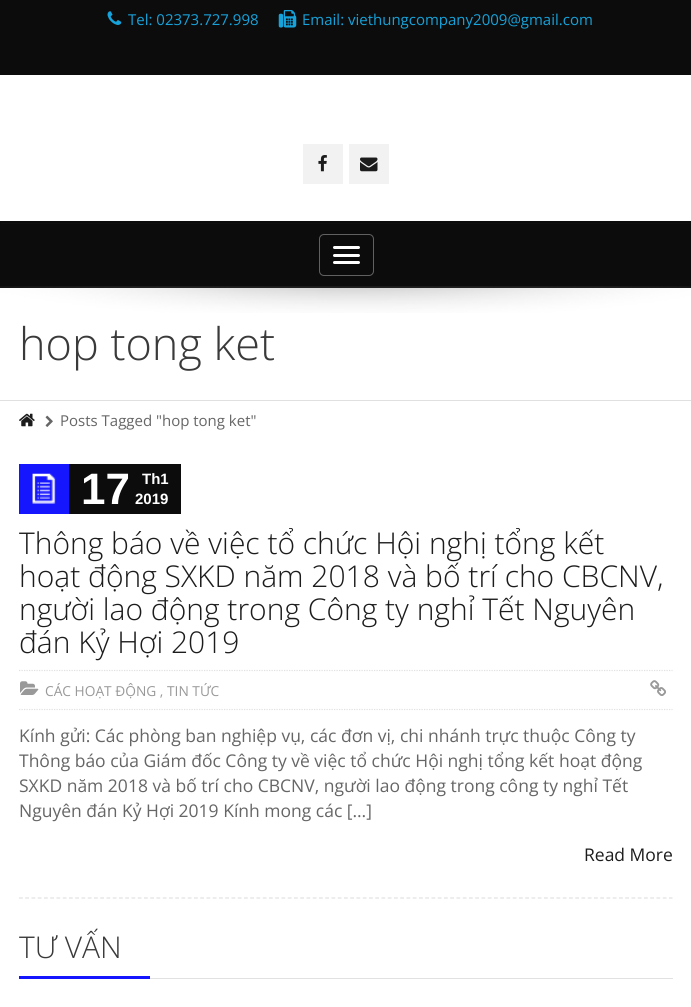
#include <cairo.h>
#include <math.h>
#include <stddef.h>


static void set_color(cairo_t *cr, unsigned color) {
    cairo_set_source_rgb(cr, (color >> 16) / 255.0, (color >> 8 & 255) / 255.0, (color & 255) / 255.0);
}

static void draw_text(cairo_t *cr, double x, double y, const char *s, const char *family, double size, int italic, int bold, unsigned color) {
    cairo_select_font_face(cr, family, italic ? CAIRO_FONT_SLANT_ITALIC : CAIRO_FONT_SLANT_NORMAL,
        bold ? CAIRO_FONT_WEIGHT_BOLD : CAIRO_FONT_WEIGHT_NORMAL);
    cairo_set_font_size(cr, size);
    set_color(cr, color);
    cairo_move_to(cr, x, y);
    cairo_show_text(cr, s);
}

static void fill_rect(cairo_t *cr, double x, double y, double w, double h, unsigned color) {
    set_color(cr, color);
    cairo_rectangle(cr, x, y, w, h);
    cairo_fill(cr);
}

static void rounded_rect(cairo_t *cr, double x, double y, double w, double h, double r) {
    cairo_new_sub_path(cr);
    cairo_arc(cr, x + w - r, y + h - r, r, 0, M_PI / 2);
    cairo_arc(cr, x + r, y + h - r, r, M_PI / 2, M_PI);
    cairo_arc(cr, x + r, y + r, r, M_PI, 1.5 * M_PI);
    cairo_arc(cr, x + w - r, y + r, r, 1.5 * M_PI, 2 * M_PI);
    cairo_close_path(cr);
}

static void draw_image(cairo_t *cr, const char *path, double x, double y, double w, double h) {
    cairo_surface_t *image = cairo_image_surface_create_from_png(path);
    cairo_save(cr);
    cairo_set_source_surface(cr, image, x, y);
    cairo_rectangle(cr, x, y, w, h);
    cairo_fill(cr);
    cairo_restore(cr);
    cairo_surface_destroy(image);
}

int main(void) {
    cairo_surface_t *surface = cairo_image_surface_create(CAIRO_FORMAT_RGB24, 691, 1007);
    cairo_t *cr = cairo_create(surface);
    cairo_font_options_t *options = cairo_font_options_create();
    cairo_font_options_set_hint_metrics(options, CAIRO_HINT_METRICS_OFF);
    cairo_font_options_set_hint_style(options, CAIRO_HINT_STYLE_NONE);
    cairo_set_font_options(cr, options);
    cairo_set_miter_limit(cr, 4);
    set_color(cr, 0xFFFFFF);
    cairo_paint(cr);
    fill_rect(cr, 0, 0, 691, 75, 0x0C0C0C);
    draw_image(cr, "assets/img1.png", 107, 11, 15, 14);
    draw_text(cr, 128, 25, "Tel: 02373.727.998", "Open Sans", 15, 0, 0, 0x16A2DA);
    draw_image(cr, "assets/img2.png", 278, 10, 19, 18);
    draw_text(cr, 302, 25, "Email: viethungcompany2009@gmail.com", "Open Sans", 15, 0, 0, 0x16A2DA);
    fill_rect(cr, 303, 144, 40, 40, 0xF2F2F2);
    draw_image(cr, "assets/img3.png", 318, 155, 9, 17);
    fill_rect(cr, 349, 144, 40, 40, 0xF2F2F2);
    draw_image(cr, "assets/img4.png", 360, 157, 18, 15);
    fill_rect(cr, 0, 221, 691, 67, 0x0C0C0C);
    fill_rect(cr, 1, 223, 689, 1, 0x0F0F0F);
    rounded_rect(cr, 319.5, 234.5, 54, 41, 4.5);
    set_color(cr, 0x616161);
    cairo_set_line_width(cr, 1);
    cairo_stroke(cr);
    set_color(cr, 0xFFFFFF);
    rounded_rect(cr, 333, 246, 27, 3, 1.5);
    cairo_fill(cr);
    rounded_rect(cr, 333, 254, 27, 3, 1.5);
    cairo_fill(cr);
    rounded_rect(cr, 333, 261, 27, 3, 1.5);
    cairo_fill(cr);
    draw_image(cr, "assets/img5.png", 0, 286, 691, 27);
    draw_text(cr, 19, 360, "hop tong ket", "Open Sans Light", 45, 0, 0, 0x3A3A3A);
    fill_rect(cr, 0, 400, 691, 1, 0xE0E0E0);
    draw_image(cr, "assets/img6.png", 19, 413, 16, 14);
    draw_image(cr, "assets/img7.png", 45, 415, 8, 12);
    draw_text(cr, 60, 426, "Posts Tagged \"hop tong ket\"", "Open Sans", 15, 0, 0, 0x666666);
    cairo_new_path(cr);
    cairo_move_to(cr, 19, 898);
    cairo_line_to(cr, 672.5, 898);
    set_color(cr, 0xE1E1E1);
    cairo_set_line_width(cr, 1.2);
    cairo_set_dash(cr, (double[]){3.75, 2.5}, 2, 0);
    cairo_stroke(cr);
    fill_rect(cr, 19, 464, 50, 50, 0x1616FE);
    draw_image(cr, "assets/img8.png", 32, 473, 24, 31);
    fill_rect(cr, 69, 464, 112, 50, 0x0C0C0C);
    draw_text(cr, 81, 504, "17", "Liberation Sans", 44, 0, 1, 0xFFFFFF);
    draw_text(cr, 142, 484, "Th1", "Liberation Sans", 15, 0, 1, 0xFFFFFF);
    draw_text(cr, 135, 504, "2019", "Liberation Sans", 15, 0, 1, 0xFFFFFF);
    draw_text(cr, 19, 554, "Thông báo về việc tổ chức Hội nghị tổng kết", "Open Sans Light", 30, 0, 0, 0x1C1C1C);
    draw_text(cr, 19, 587, "hoạt động SXKD năm 2018 và bố trí cho CBCNV,", "Open Sans Light", 30, 0, 0, 0x1C1C1C);
    draw_text(cr, 19, 620, "người lao động trong Công ty nghỉ Tết Nguyên", "Open Sans Light", 30, 0, 0, 0x1C1C1C);
    draw_text(cr, 19, 653, "đán Kỷ Hợi 2019", "Open Sans Light", 30, 0, 0, 0x1C1C1C);
    cairo_new_path(cr);
    cairo_move_to(cr, 19, 670.5);
    cairo_line_to(cr, 672.5, 670.5);
    set_color(cr, 0xE1E1E1);
    cairo_set_dash(cr, (double[]){1.25, 1.25}, 2, 0);
    cairo_stroke(cr);
    cairo_new_path(cr);
    cairo_move_to(cr, 19, 709.5);
    cairo_line_to(cr, 672.5, 709.5);
    cairo_stroke(cr);
    draw_image(cr, "assets/img9.png", 20, 681, 19, 14);
    draw_text(cr, 45, 696, "CÁC HOẠT ĐỘNG , TIN TỨC", "Open Sans", 13.75, 0, 0, 0x999999);
    draw_image(cr, "assets/img10.png", 650, 680, 16, 16);
    draw_text(cr, 19, 742, "Kính gửi: Các phòng ban nghiệp vụ, các đơn vị, chi nhánh trực thuộc Công ty", "Open Sans", 17.5, 0, 0, 0x666666);
    draw_text(cr, 19, 767, "Thông báo của Giám đốc Công ty về việc tổ chức Hội nghị tổng kết hoạt động", "Open Sans", 17.5, 0, 0, 0x666666);
    draw_text(cr, 19, 792, "SXKD năm 2018 và bố trí cho CBCNV, người lao động trong công ty nghỉ Tết", "Open Sans", 17.5, 0, 0, 0x666666);
    draw_text(cr, 19, 817, "Nguyên đán Kỷ Hợi 2019 Kính mong các […]", "Open Sans", 17.5, 0, 0, 0x666666);
    draw_text(cr, 584, 861, "Read More", "Open Sans", 17.5, 0, 0, 0x1C1C1C);
    draw_text(cr, 19, 958, "TƯ VẤN", "Open Sans Light", 30, 0, 0, 0x3A3A3A);
    fill_rect(cr, 19, 976, 131, 3, 0x1616FE);
    fill_rect(cr, 150, 978, 523, 1, 0xE1E1E1);
    cairo_surface_write_to_png(surface, "output.png");
    cairo_font_options_destroy(options);
    cairo_destroy(cr);
    cairo_surface_destroy(surface);
    return 0;
}
